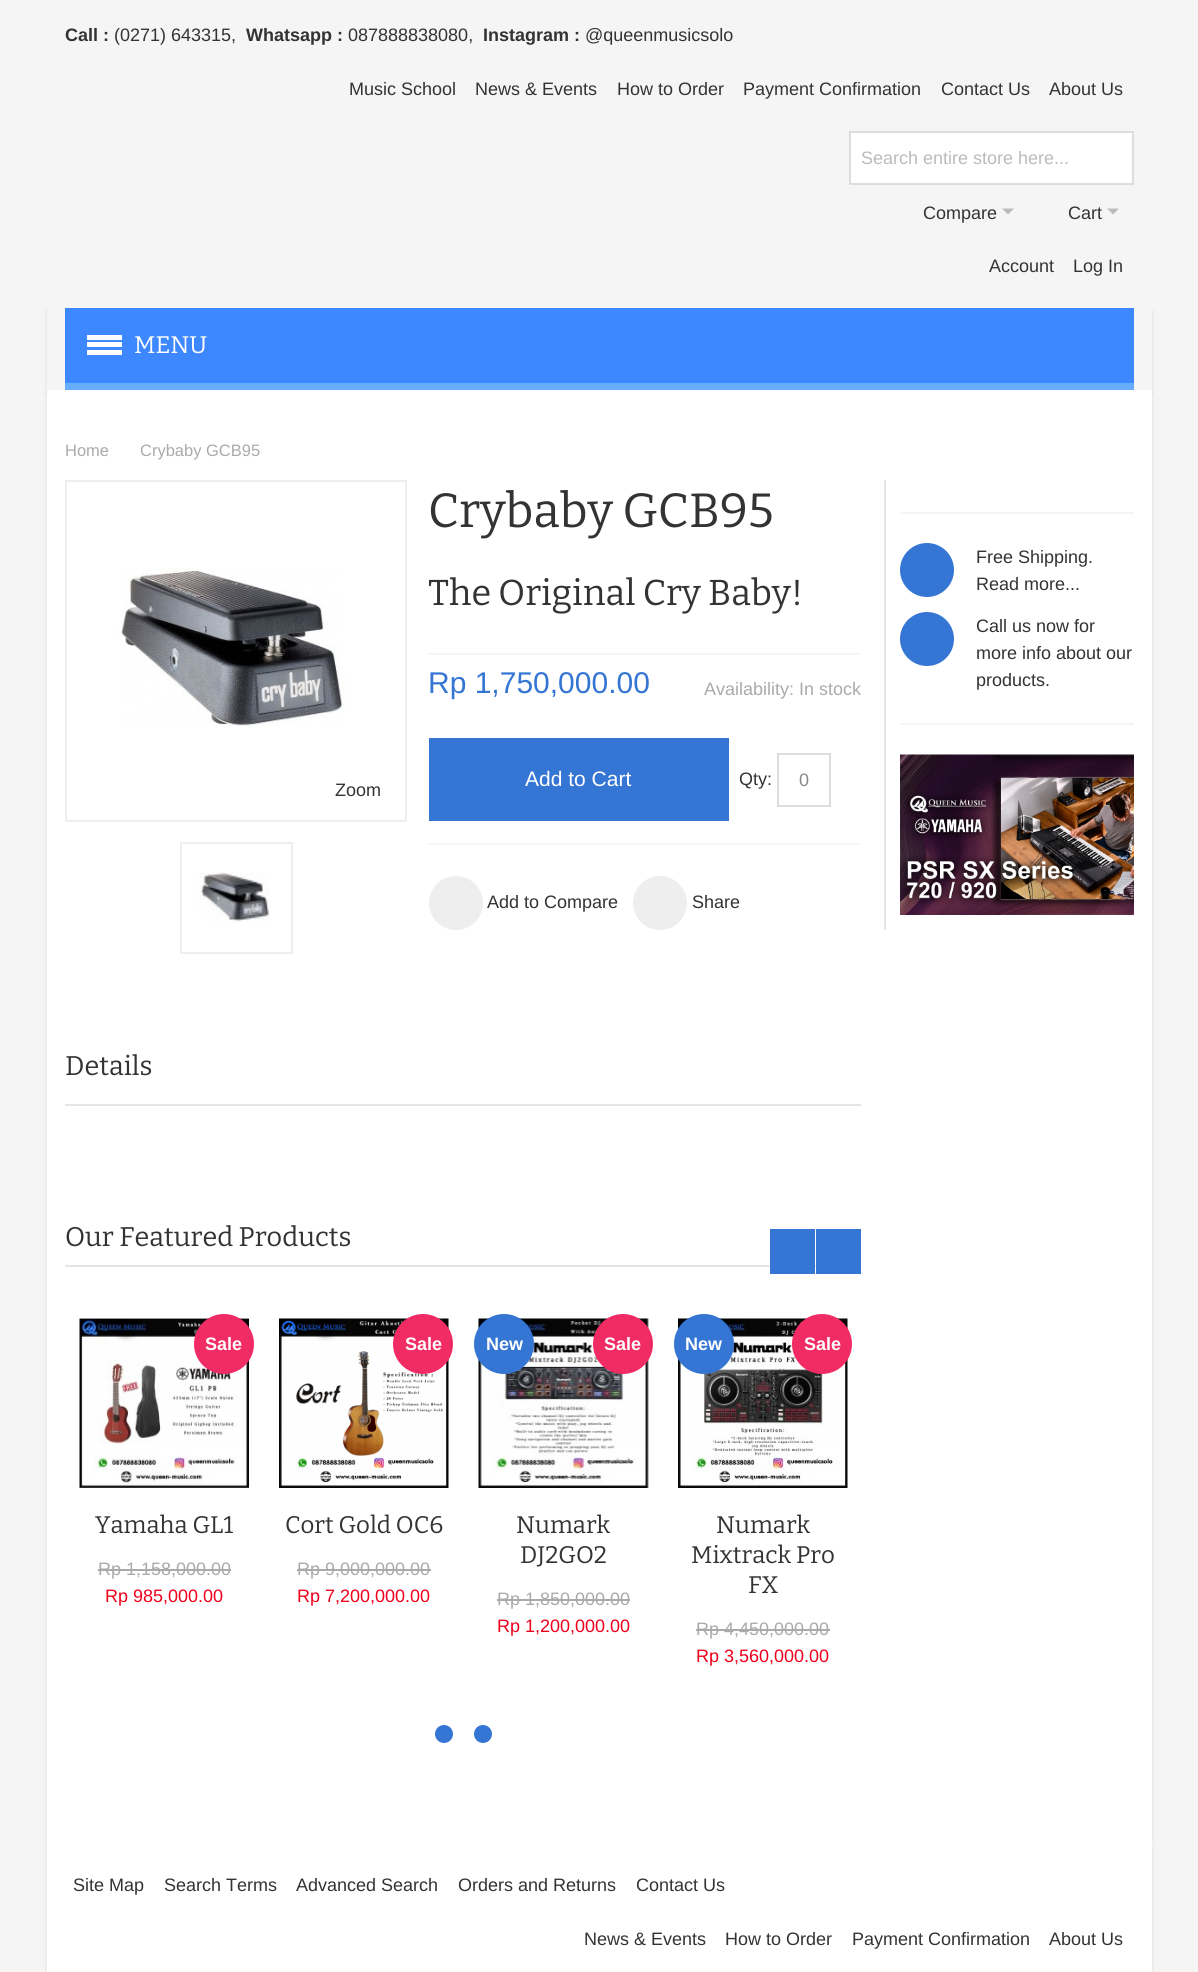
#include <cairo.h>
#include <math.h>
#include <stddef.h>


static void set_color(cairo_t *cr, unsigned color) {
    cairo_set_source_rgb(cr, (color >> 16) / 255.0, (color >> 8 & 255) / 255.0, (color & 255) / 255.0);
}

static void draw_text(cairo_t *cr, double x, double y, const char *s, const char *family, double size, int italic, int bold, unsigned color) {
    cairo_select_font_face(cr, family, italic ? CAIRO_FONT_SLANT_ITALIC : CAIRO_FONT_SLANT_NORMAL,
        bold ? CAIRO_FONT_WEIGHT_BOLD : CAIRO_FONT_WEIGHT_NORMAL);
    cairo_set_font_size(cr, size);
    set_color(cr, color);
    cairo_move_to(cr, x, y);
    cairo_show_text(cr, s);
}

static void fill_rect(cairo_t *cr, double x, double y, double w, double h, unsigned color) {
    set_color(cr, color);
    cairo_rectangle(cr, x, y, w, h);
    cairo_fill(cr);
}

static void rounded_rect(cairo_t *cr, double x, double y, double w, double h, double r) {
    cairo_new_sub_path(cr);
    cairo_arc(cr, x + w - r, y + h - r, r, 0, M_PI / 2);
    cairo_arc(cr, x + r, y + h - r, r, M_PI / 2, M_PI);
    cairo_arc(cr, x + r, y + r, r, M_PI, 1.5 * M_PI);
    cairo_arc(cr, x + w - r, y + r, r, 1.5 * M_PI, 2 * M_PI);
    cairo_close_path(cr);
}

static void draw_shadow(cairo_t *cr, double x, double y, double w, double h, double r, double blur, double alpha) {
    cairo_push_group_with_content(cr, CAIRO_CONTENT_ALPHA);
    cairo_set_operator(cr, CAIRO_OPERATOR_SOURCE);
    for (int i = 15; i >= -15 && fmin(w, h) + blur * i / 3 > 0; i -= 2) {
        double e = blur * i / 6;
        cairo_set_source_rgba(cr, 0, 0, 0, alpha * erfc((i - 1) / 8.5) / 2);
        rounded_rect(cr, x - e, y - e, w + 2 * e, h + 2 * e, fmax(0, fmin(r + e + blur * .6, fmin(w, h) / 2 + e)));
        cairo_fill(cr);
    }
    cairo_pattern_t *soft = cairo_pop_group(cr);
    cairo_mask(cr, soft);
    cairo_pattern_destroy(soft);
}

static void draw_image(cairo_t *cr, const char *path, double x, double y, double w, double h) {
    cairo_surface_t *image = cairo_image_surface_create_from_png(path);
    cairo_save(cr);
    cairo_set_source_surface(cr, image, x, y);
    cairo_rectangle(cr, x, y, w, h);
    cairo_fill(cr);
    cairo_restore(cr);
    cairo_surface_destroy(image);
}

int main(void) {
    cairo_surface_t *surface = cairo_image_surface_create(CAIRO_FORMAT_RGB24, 1198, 1972);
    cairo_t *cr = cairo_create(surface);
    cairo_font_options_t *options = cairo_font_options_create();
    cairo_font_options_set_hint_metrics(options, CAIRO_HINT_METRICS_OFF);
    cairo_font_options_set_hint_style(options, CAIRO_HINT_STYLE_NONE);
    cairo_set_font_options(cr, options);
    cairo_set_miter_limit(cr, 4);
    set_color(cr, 0xF5F5F5);
    cairo_paint(cr);
    draw_text(cr, 65, 41, "Call :", "Liberation Sans", 18, 0, 1, 0x333333);
    draw_text(cr, 114, 41, "(0271) 643315,", "Liberation Sans", 18, 0, 0, 0x333333);
    draw_text(cr, 246, 41, "Whatsapp :", "Liberation Sans", 18, 0, 1, 0x333333);
    draw_text(cr, 348, 41, "087888838080,", "Liberation Sans", 18, 0, 0, 0x333333);
    draw_text(cr, 483, 41, "Instagram :", "Liberation Sans", 18, 0, 1, 0x333333);
    draw_text(cr, 585, 41, "@queenmusicsolo", "Liberation Sans", 18, 0, 0, 0x333333);
    draw_text(cr, 349, 95, "Music School", "Liberation Sans", 18, 0, 0, 0x333333);
    draw_text(cr, 475, 95, "News & Events", "Liberation Sans", 18, 0, 0, 0x333333);
    draw_text(cr, 617, 95, "How to Order", "Liberation Sans", 18, 0, 0, 0x333333);
    draw_text(cr, 743, 95, "Payment Confirmation", "Liberation Sans", 18, 0, 0, 0x333333);
    draw_text(cr, 941, 95, "Contact Us", "Liberation Sans", 18, 0, 0, 0x333333);
    draw_text(cr, 1049, 95, "About Us", "Liberation Sans", 18, 0, 0, 0x333333);
    set_color(cr, 0xFFFFFF);
    cairo_rectangle(cr, 850, 132, 283, 52);
    cairo_fill_preserve(cr);
    set_color(cr, 0xDDDDDD);
    cairo_stroke(cr);
    draw_text(cr, 861, 164, "Search entire store here...", "Liberation Sans", 18, 0, 0, 0xBBBBBB);
    draw_text(cr, 923, 219, "Compare", "Liberation Sans", 18, 0, 0, 0x333333);
    cairo_set_source_rgba(cr, 0.2, 0.2, 0.2, 0.3);
    cairo_new_path(cr);
    cairo_move_to(cr, 1002, 208.5);
    cairo_line_to(cr, 1014, 208.5);
    cairo_line_to(cr, 1008, 214.5);
    cairo_close_path(cr);
    cairo_fill(cr);
    draw_text(cr, 1068, 219, "Cart", "Liberation Sans", 18, 0, 0, 0x333333);
    cairo_set_source_rgba(cr, 0.2, 0.2, 0.2, 0.3);
    cairo_new_path(cr);
    cairo_move_to(cr, 1107, 208.5);
    cairo_line_to(cr, 1119, 208.5);
    cairo_line_to(cr, 1113, 214.5);
    cairo_close_path(cr);
    cairo_fill(cr);
    draw_text(cr, 989, 272, "Account", "Liberation Sans", 18, 0, 0, 0x333333);
    draw_text(cr, 1073, 272, "Log In", "Liberation Sans", 18, 0, 0, 0x333333);
    cairo_save(cr);
    cairo_set_fill_rule(cr, CAIRO_FILL_RULE_EVEN_ODD);
    cairo_new_path(cr);
    cairo_move_to(cr, 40, 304);
    cairo_line_to(cr, 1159, 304);
    cairo_line_to(cr, 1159, 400);
    cairo_line_to(cr, 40, 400);
    cairo_close_path(cr);
    cairo_move_to(cr, 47, 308);
    cairo_line_to(cr, 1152, 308);
    cairo_line_to(cr, 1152, 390);
    cairo_line_to(cr, 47, 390);
    cairo_close_path(cr);
    cairo_clip(cr);
    set_color(cr, 0x000000);
    draw_shadow(cr, 47, 311, 1105, 82, 0, 2, 0.1);
    cairo_restore(cr);
    fill_rect(cr, 65, 308, 1069, 75, 0x3D87FF);
    fill_rect(cr, 65, 383, 1069, 7, 0x67ADFD);
    fill_rect(cr, 87, 335, 35, 5, 0xFFFFFF);
    fill_rect(cr, 87, 342, 35, 5, 0xFFFFFF);
    fill_rect(cr, 87, 350, 35, 5, 0xFFFFFF);
    draw_text(cr, 134, 353, "MENU", "Bitter Thin", 24, 0, 0, 0xFFFFFF);
    set_color(cr, 0x000000);
    draw_shadow(cr, 47, 393, 1105, 1454, 0, 2, 0.1);
    fill_rect(cr, 47, 390, 1105, 1454, 0xFFFFFF);
    draw_text(cr, 65, 456, "Home", "Liberation Sans", 16.5, 0, 0, 0xAAAAAA);
    draw_text(cr, 140, 456, "Crybaby GCB95", "Liberation Sans", 16.5, 0, 0, 0xAAAAAA);
    draw_text(cr, 428, 527, "Crybaby GCB95", "Bitter Thin", 48, 0, 0, 0x333333);
    draw_text(cr, 428, 605, "The Original Cry Baby!", "Bitter Thin", 36, 0, 0, 0x333333);
    fill_rect(cr, 429, 653, 432, 2, 0xF5F5F5);
    draw_text(cr, 428, 693, "Rp 1,750,000.00", "Liberation Sans", 30, 0, 0, 0x3575D3);
    draw_text(cr, 704, 695, "Availability: In stock", "Liberation Sans", 18, 0, 0, 0xAAAAAA);
    fill_rect(cr, 429, 843, 432, 2, 0xF5F5F5);
    fill_rect(cr, 429, 738, 300, 83, 0x3575D3);
    draw_text(cr, 525, 786, "Add to Cart", "Liberation Sans", 21, 0, 0, 0xFFFFFF);
    draw_text(cr, 739, 785, "Qty:", "Liberation Sans", 18, 0, 0, 0x333333);
    cairo_rectangle(cr, 778, 754, 52, 52);
    set_color(cr, 0xDDDDDD);
    cairo_stroke(cr);
    draw_text(cr, 799, 786, "0", "Liberation Sans", 18, 0, 0, 0x888888);
    set_color(cr, 0xEEEEEE);
    cairo_new_path(cr);
    cairo_arc(cr, 456, 903, 27, 0, 2 * M_PI);
    cairo_fill(cr);
    draw_text(cr, 487, 908, "Add to Compare", "Liberation Sans", 18, 0, 0, 0x333333);
    set_color(cr, 0xEEEEEE);
    cairo_new_path(cr);
    cairo_arc(cr, 660, 903, 27, 0, 2 * M_PI);
    cairo_fill(cr);
    draw_text(cr, 692, 908, "Share", "Liberation Sans", 18, 0, 0, 0x333333);
    fill_rect(cr, 884, 480, 2, 450, 0xE5E5E5);
    fill_rect(cr, 900, 512, 234, 2, 0xF5F5F5);
    set_color(cr, 0x3575D3);
    cairo_new_path(cr);
    cairo_arc(cr, 927, 570, 27, 0, 2 * M_PI);
    cairo_fill(cr);
    draw_text(cr, 976, 563, "Free Shipping.", "Liberation Sans", 18, 0, 0, 0x333333);
    draw_text(cr, 976, 590, "Read more...", "Liberation Sans", 18, 0, 0, 0x333333);
    set_color(cr, 0x3575D3);
    cairo_new_path(cr);
    cairo_arc(cr, 927, 639, 27, 0, 2 * M_PI);
    cairo_fill(cr);
    draw_text(cr, 976, 632, "Call us now for", "Liberation Sans", 18, 0, 0, 0x333333);
    draw_text(cr, 976, 659, "more info about our", "Liberation Sans", 18, 0, 0, 0x333333);
    draw_text(cr, 976, 686, "products.", "Liberation Sans", 18, 0, 0, 0x333333);
    fill_rect(cr, 900, 723, 234, 2, 0xF5F5F5);
    draw_image(cr, "assets/img1.png", 900, 754, 234, 161);
    cairo_rectangle(cr, 66, 481, 340, 340);
    set_color(cr, 0xEEEEEE);
    cairo_stroke(cr);
    draw_image(cr, "assets/img2.png", 119, 568, 226, 158);
    draw_text(cr, 335, 796, "Zoom", "Liberation Sans", 18, 0, 0, 0x333333);
    cairo_rectangle(cr, 181, 843, 111, 110);
    set_color(cr, 0xEEEEEE);
    cairo_stroke(cr);
    draw_image(cr, "assets/img3.png", 199, 872, 72, 50);
    fill_rect(cr, 65, 1104, 796, 2, 0xE5E5E5);
    draw_text(cr, 65, 1075, "Details", "Bitter Thin", 27, 0, 0, 0x333333);
    fill_rect(cr, 65, 1265, 751, 2, 0xE5E5E5);
    draw_text(cr, 65, 1246, "Our Featured Products", "Bitter Thin", 27, 0, 0, 0x333333);
    fill_rect(cr, 770, 1229, 45, 45, 0x3575D3);
    fill_rect(cr, 816, 1229, 45, 45, 0x3575D3);
    cairo_new_path(cr);
    cairo_arc(cr, 444, 1734, 9, 0, 2 * M_PI);
    cairo_fill(cr);
    cairo_arc(cr, 483, 1734, 9, 0, 2 * M_PI);
    cairo_fill(cr);
    draw_image(cr, "assets/img4.png", 79, 1318, 170, 170);
    set_color(cr, 0xF12B63);
    cairo_arc(cr, 224, 1344, 30, 0, 2 * M_PI);
    cairo_fill(cr);
    draw_text(cr, 205, 1350, "Sale", "Liberation Sans", 18, 0, 1, 0xFFFFFF);
    draw_text(cr, 95, 1533, "Yamaha GL1", "Bitter Thin", 24, 0, 0, 0x333333);
    draw_text(cr, 98, 1575, "Rp 1,158,000.00", "Liberation Sans", 18, 0, 0, 0xAAAAAA);
    fill_rect(cr, 98, 1569, 133, 2, 0xAAAAAA);
    draw_text(cr, 105, 1602, "Rp 985,000.00", "Liberation Sans", 18, 0, 0, 0xEE001C);
    draw_image(cr, "assets/img5.png", 279, 1318, 170, 170);
    set_color(cr, 0xF12B63);
    cairo_arc(cr, 423, 1344, 30, 0, 2 * M_PI);
    cairo_fill(cr);
    draw_text(cr, 405, 1350, "Sale", "Liberation Sans", 18, 0, 1, 0xFFFFFF);
    draw_text(cr, 285, 1533, "Cort Gold OC6", "Bitter Thin", 24, 0, 0, 0x333333);
    draw_text(cr, 297, 1575, "Rp 9,000,000.00", "Liberation Sans", 18, 0, 0, 0xAAAAAA);
    fill_rect(cr, 297, 1569, 134, 2, 0xAAAAAA);
    draw_text(cr, 297, 1602, "Rp 7,200,000.00", "Liberation Sans", 18, 0, 0, 0xEE001C);
    draw_image(cr, "assets/img6.png", 478, 1318, 171, 170);
    set_color(cr, 0x3575D3);
    cairo_arc(cr, 504, 1344, 30, 0, 2 * M_PI);
    cairo_fill(cr);
    draw_text(cr, 486, 1350, "New", "Liberation Sans", 18, 0, 1, 0xFFFFFF);
    set_color(cr, 0xF12B63);
    cairo_new_path(cr);
    cairo_arc(cr, 623, 1344, 30, 0, 2 * M_PI);
    cairo_fill(cr);
    draw_text(cr, 604, 1350, "Sale", "Liberation Sans", 18, 0, 1, 0xFFFFFF);
    draw_text(cr, 516, 1533, "Numark", "Bitter Thin", 24, 0, 0, 0x333333);
    draw_text(cr, 520, 1563, "DJ2GO2", "Bitter Thin", 24, 0, 0, 0x333333);
    draw_text(cr, 497, 1605, "Rp 1,850,000.00", "Liberation Sans", 18, 0, 0, 0xAAAAAA);
    fill_rect(cr, 497, 1599, 133, 2, 0xAAAAAA);
    draw_text(cr, 497, 1632, "Rp 1,200,000.00", "Liberation Sans", 18, 0, 0, 0xEE001C);
    draw_image(cr, "assets/img7.png", 678, 1318, 170, 170);
    set_color(cr, 0x3575D3);
    cairo_arc(cr, 704, 1344, 30, 0, 2 * M_PI);
    cairo_fill(cr);
    draw_text(cr, 685, 1350, "New", "Liberation Sans", 18, 0, 1, 0xFFFFFF);
    set_color(cr, 0xF12B63);
    cairo_new_path(cr);
    cairo_arc(cr, 822, 1344, 30, 0, 2 * M_PI);
    cairo_fill(cr);
    draw_text(cr, 804, 1350, "Sale", "Liberation Sans", 18, 0, 1, 0xFFFFFF);
    draw_text(cr, 716, 1533, "Numark", "Bitter Thin", 24, 0, 0, 0x333333);
    draw_text(cr, 691, 1563, "Mixtrack Pro", "Bitter Thin", 24, 0, 0, 0x333333);
    draw_text(cr, 748, 1593, "FX", "Bitter Thin", 24, 0, 0, 0x333333);
    draw_text(cr, 696, 1635, "Rp 4,450,000.00", "Liberation Sans", 18, 0, 0, 0xAAAAAA);
    fill_rect(cr, 696, 1629, 134, 2, 0xAAAAAA);
    draw_text(cr, 696, 1662, "Rp 3,560,000.00", "Liberation Sans", 18, 0, 0, 0xEE001C);
    fill_rect(cr, 45, 1844, 1109, 5, 0xF5F5F5);
    set_color(cr, 0x000000);
    draw_shadow(cr, 47, 1847, 1105, 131, 0, 2, 0.1);
    fill_rect(cr, 47, 1844, 1105, 128, 0xFFFFFF);
    draw_text(cr, 73, 1891, "Site Map", "Liberation Sans", 18, 0, 0, 0x333333);
    draw_text(cr, 164, 1891, "Search Terms", "Liberation Sans", 18, 0, 0, 0x333333);
    draw_text(cr, 296, 1891, "Advanced Search", "Liberation Sans", 18, 0, 0, 0x333333);
    draw_text(cr, 458, 1891, "Orders and Returns", "Liberation Sans", 18, 0, 0, 0x333333);
    draw_text(cr, 636, 1891, "Contact Us", "Liberation Sans", 18, 0, 0, 0x333333);
    draw_text(cr, 584, 1945, "News & Events", "Liberation Sans", 18, 0, 0, 0x333333);
    draw_text(cr, 725, 1945, "How to Order", "Liberation Sans", 18, 0, 0, 0x333333);
    draw_text(cr, 852, 1945, "Payment Confirmation", "Liberation Sans", 18, 0, 0, 0x333333);
    draw_text(cr, 1049, 1945, "About Us", "Liberation Sans", 18, 0, 0, 0x333333);
    cairo_surface_write_to_png(surface, "output.png");
    cairo_font_options_destroy(options);
    cairo_destroy(cr);
    cairo_surface_destroy(surface);
    return 0;
}
